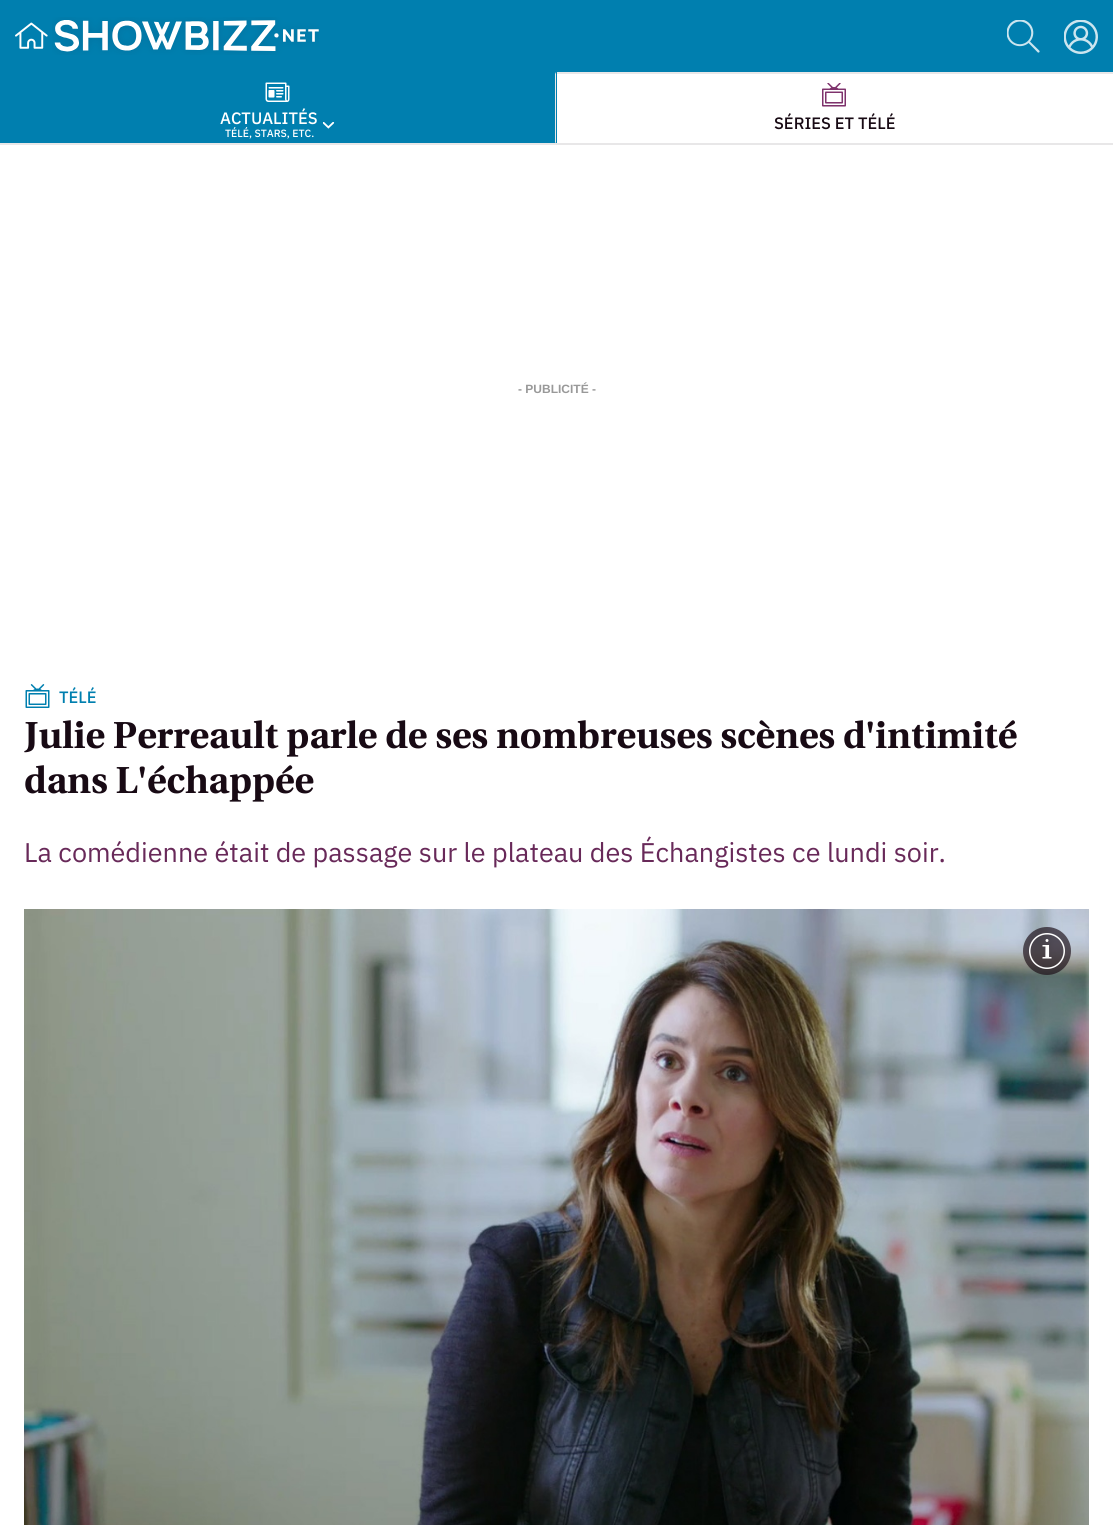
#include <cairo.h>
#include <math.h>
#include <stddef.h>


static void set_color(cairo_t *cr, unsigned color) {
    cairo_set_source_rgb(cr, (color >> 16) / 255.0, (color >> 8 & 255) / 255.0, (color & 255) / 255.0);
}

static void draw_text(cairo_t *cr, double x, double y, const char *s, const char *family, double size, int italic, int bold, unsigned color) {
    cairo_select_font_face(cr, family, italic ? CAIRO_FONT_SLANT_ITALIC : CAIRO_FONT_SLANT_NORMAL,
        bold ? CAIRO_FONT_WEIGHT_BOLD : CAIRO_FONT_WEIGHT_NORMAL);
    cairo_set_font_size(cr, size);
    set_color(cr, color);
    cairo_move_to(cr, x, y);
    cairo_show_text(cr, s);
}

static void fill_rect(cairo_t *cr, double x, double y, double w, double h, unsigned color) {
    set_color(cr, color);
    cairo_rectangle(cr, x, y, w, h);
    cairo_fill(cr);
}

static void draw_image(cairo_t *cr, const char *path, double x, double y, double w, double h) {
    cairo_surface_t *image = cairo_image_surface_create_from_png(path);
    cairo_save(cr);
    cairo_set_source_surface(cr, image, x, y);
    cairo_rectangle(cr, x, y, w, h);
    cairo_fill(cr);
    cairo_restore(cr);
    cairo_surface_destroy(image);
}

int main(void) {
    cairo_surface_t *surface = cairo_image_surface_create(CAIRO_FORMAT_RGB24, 1113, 1525);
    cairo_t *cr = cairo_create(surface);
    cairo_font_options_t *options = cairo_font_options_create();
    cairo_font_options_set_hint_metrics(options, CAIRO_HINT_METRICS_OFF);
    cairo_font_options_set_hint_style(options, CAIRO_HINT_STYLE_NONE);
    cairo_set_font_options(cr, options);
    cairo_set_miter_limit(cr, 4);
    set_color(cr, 0xFFFFFF);
    cairo_paint(cr);
    fill_rect(cr, 0, 0, 1113, 143, 0x007FAF);
    draw_image(cr, "assets/img1.png", 15, 22, 33, 27);
    draw_image(cr, "assets/img2.png", 52, 17, 267, 38);
    draw_image(cr, "assets/img3.png", 1007, 20, 33, 33);
    draw_image(cr, "assets/img4.png", 1064, 20, 34, 34);
    set_color(cr, 0xE8E7E8);
    cairo_new_path(cr);
    cairo_move_to(cr, 556, 72);
    cairo_line_to(cr, 556, 144);
    cairo_line_to(cr, 555, 142);
    cairo_line_to(cr, 555, 74);
    cairo_close_path(cr);
    cairo_fill(cr);
    fill_rect(cr, 0, 143, 1113, 2, 0xE8E7E8);
    draw_image(cr, "assets/img5.png", 265, 82, 25, 20);
    draw_text(cr, 220, 124, "ACTUALITÉS", "IBM Plex Sans Medium", 16.5, 0, 0, 0xFFFFFF);
    draw_text(cr, 225, 137, "TÉLÉ, STARS, ETC.", "IBM Plex Sans Medium", 10.5, 0, 0, 0xFFFFFF);
    draw_image(cr, "assets/img6.png", 323, 122, 12, 7);
    fill_rect(cr, 557, 74, 556, 69, 0xFFFFFF);
    fill_rect(cr, 557, 72, 556, 2, 0xE8E7E8);
    draw_image(cr, "assets/img7.png", 822, 83, 24, 24);
    draw_text(cr, 774, 129, "SÉRIES ET TÉLÉ", "IBM Plex Sans Medium", 16.5, 0, 0, 0x180A14);
    draw_text(cr, 518, 393, "- PUBLICITÉ -", "Liberation Sans", 12, 0, 1, 0x999999);
    draw_image(cr, "assets/img8.png", 25, 684, 25, 24);
    draw_text(cr, 59, 703, "TÉLÉ", "IBM Plex Sans Medium", 16.5, 0, 0, 0x007FAF);
    draw_text(cr, 24, 748, "Julie Perreault parle de ses nombreuses scènes d'intimité", "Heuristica", 37.5, 0, 1, 0x180A14);
    draw_text(cr, 24, 793, "dans L'échappée", "Heuristica", 37.5, 0, 1, 0x180A14);
    draw_text(cr, 24, 862, "La comédienne était de passage sur le plateau des Échangistes ce lundi soir.", "IBM Plex Sans", 27, 0, 0, 0x682959);
    draw_image(cr, "assets/img9.png", 24, 909, 1065, 616);
    cairo_set_source_rgba(cr, 0.094, 0.039, 0.078, 0.65);
    cairo_arc(cr, 1047, 951, 24, 0, 2 * M_PI);
    cairo_fill(cr);
    draw_image(cr, "assets/img10.png", 1029, 933, 36, 36);
    cairo_surface_write_to_png(surface, "output.png");
    cairo_font_options_destroy(options);
    cairo_destroy(cr);
    cairo_surface_destroy(surface);
    return 0;
}
